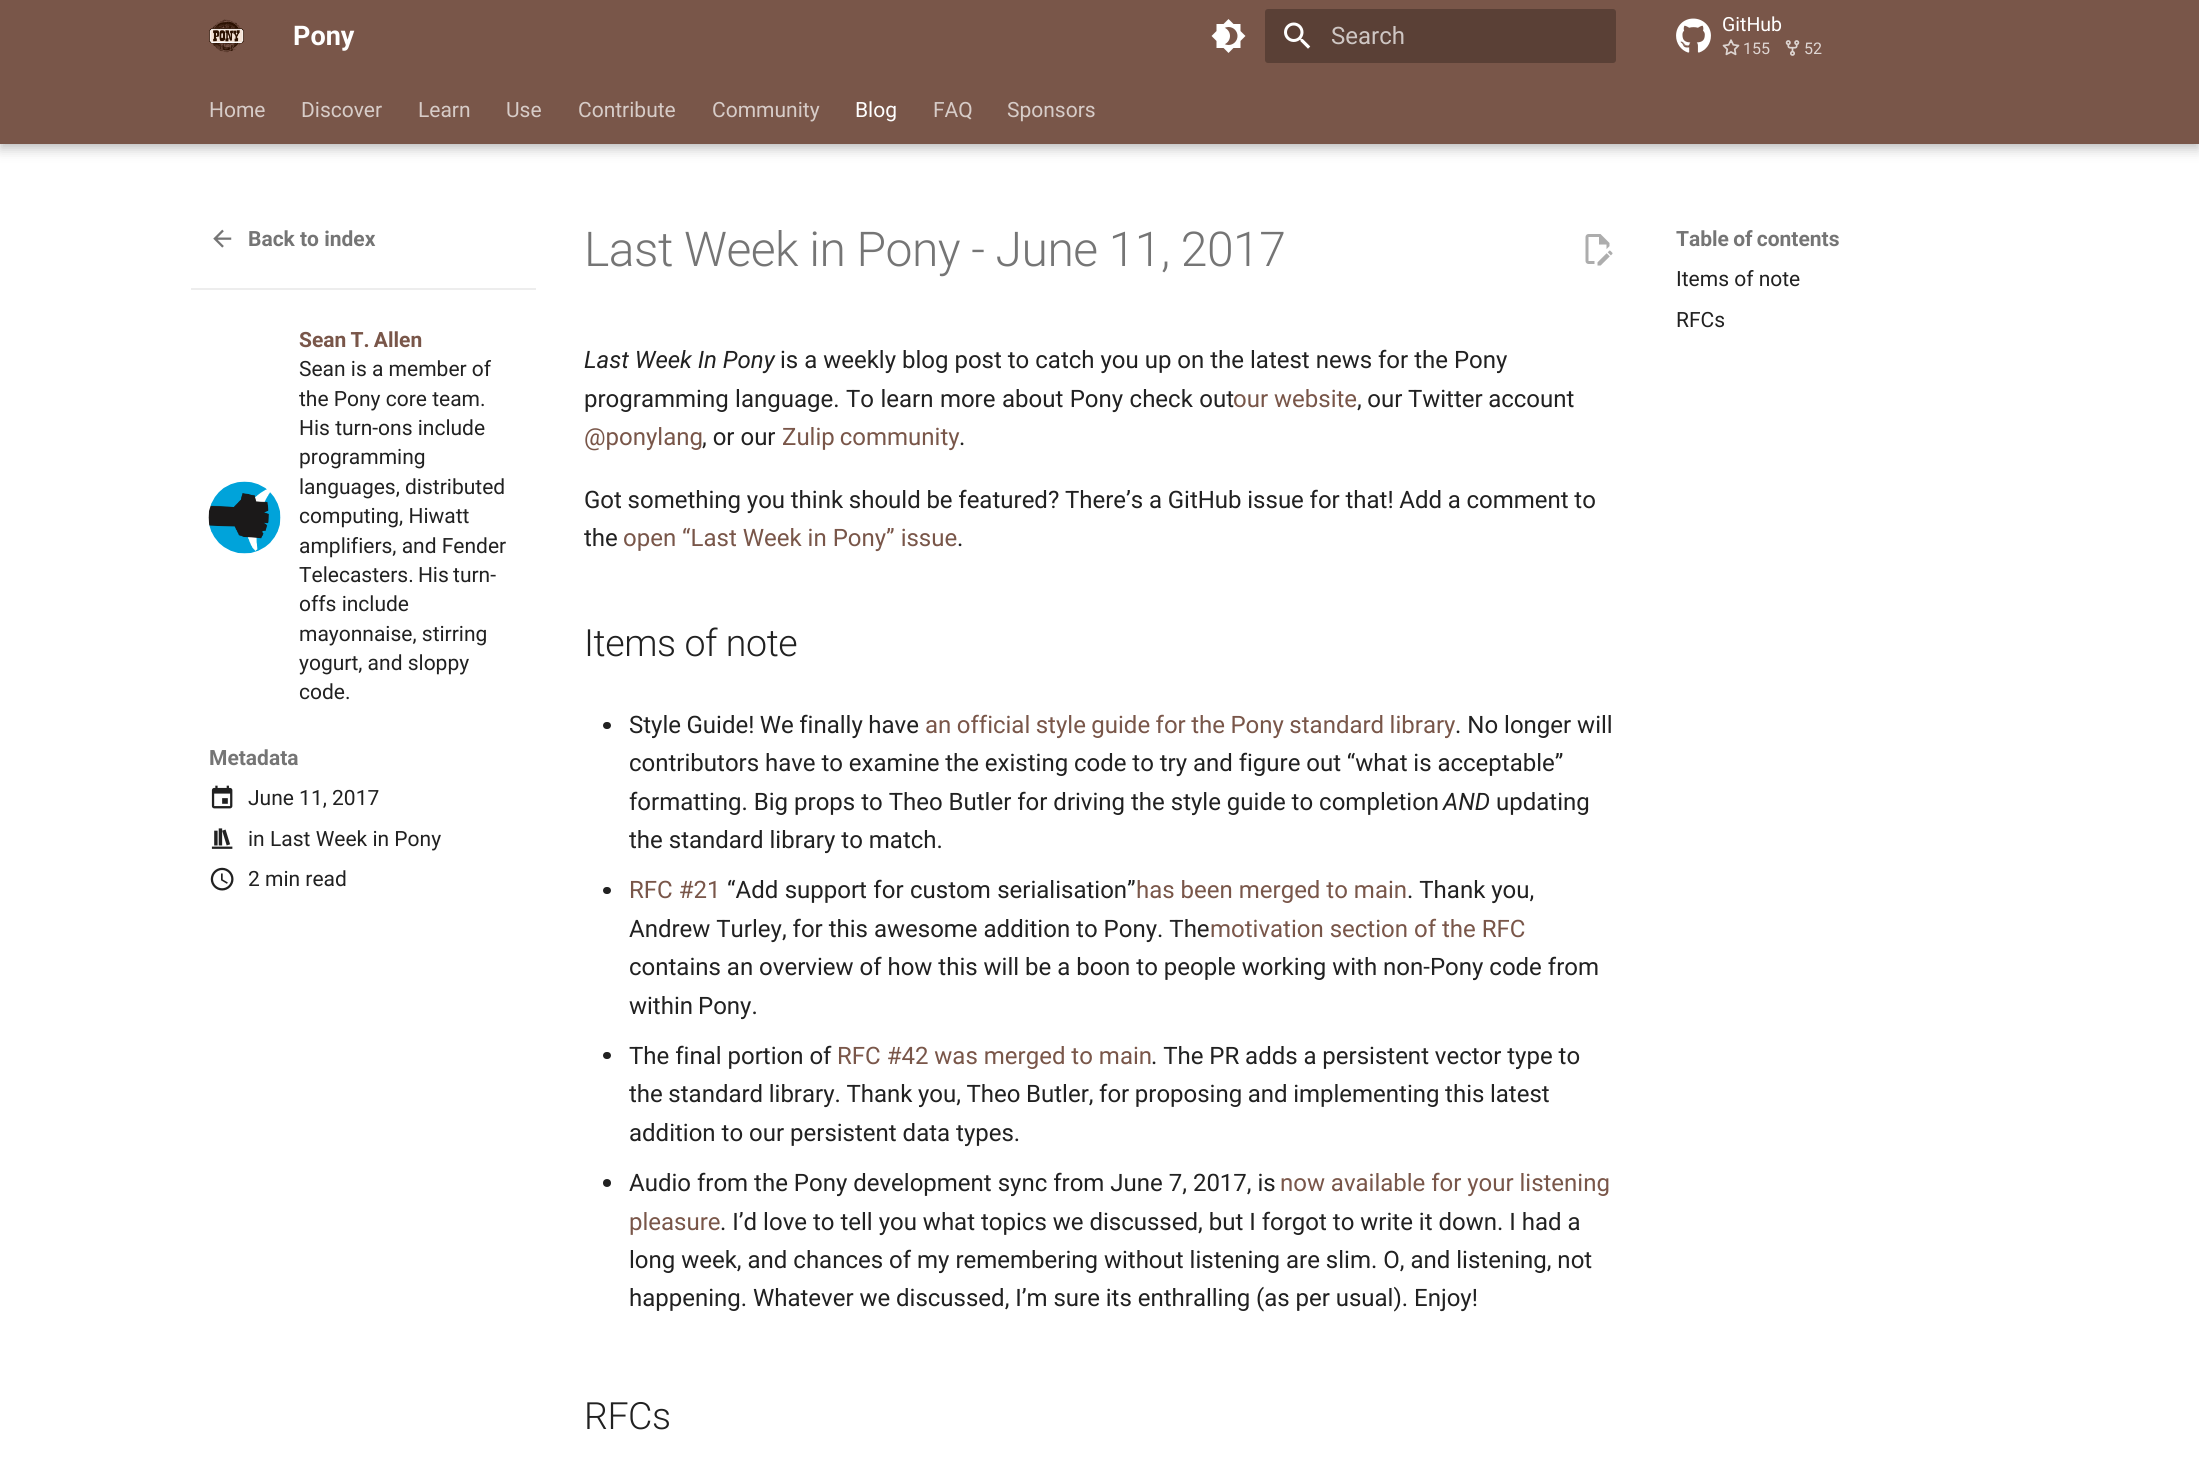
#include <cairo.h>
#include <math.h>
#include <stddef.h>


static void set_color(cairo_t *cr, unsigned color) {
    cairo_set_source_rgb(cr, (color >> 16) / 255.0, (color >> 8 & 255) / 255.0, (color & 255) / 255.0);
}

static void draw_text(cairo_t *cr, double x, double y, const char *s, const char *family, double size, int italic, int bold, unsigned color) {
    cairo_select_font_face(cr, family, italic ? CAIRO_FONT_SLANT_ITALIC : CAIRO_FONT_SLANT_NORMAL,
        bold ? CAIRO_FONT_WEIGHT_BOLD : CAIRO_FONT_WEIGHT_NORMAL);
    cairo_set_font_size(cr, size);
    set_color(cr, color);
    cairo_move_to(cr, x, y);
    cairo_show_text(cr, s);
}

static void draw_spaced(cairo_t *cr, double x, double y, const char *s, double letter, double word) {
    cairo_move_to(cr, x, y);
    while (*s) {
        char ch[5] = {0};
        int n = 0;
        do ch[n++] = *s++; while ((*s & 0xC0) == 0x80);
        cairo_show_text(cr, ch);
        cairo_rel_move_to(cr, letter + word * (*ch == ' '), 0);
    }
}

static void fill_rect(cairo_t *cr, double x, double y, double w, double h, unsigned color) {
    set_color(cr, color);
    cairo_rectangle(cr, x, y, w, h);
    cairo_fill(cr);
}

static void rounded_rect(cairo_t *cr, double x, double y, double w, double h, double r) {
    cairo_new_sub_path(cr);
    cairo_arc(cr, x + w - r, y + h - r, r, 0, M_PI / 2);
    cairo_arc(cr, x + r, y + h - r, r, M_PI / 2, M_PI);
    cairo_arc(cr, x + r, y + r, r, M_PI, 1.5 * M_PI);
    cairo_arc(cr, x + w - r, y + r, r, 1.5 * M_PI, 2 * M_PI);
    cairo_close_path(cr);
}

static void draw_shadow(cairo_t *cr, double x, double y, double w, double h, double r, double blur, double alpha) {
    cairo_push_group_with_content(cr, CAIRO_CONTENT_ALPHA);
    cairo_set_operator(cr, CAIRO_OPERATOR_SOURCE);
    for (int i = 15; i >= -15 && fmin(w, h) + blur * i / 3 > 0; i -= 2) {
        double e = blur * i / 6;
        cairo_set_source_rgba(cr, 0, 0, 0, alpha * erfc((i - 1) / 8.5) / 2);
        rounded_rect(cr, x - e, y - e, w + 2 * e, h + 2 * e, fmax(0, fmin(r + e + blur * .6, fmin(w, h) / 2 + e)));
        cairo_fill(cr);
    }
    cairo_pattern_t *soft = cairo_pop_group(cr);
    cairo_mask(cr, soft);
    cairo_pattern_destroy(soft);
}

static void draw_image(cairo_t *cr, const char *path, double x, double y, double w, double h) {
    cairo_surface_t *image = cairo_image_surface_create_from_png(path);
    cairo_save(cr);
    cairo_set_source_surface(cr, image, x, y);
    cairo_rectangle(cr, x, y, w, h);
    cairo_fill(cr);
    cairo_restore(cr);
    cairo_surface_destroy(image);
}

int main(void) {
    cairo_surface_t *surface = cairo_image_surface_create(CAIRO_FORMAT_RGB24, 2199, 1471);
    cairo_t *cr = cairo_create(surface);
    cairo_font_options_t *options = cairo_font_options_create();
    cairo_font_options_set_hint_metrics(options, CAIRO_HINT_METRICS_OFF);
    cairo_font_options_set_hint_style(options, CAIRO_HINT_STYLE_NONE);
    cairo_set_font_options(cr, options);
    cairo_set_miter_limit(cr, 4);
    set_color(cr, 0xFFFFFF);
    cairo_paint(cr);
    set_color(cr, 0x000000);
    draw_shadow(cr, 0, 6, 2199, 144, 0, 6, 0.2);
    draw_shadow(cr, 0, 0, 2199, 144, 0, 3, 0.1);
    fill_rect(cr, 0, 0, 2199, 144, 0x795649);
    draw_image(cr, "assets/img1.png", 209, 19, 35, 34);
    draw_text(cr, 293, 45, "Pony", "Roboto", 27, 0, 1, 0xFFFFFF);
    draw_image(cr, "assets/img2.png", 1211, 19, 35, 34);
    set_color(cr, 0x5A4036);
    rounded_rect(cr, 1265, 9, 351, 54, 3);
    cairo_fill(cr);
    draw_image(cr, "assets/img3.png", 1284, 22, 27, 27);
    draw_text(cr, 1331, 44, "Search", "Roboto", 24, 0, 0, 0xCEC6C3);
    draw_image(cr, "assets/img4.png", 1676, 18, 35, 35);
    draw_text(cr, 1722, 31, "GitHub", "Roboto", 19.5, 0, 0, 0xFFFFFF);
    draw_image(cr, "assets/img5.png", 1722, 39, 18, 17);
    draw_text(cr, 1743, 54, "155", "Roboto", 16, 0, 0, 0xDED5D2);
    draw_image(cr, "assets/img6.png", 1785, 40, 15, 16);
    draw_text(cr, 1804, 54, "52", "Roboto", 16, 0, 0, 0xDED5D2);
    draw_text(cr, 209, 117, "Home", "Roboto", 21, 0, 0, 0xD7CCC8);
    draw_text(cr, 301, 117, "Discover", "Roboto", 21, 0, 0, 0xD7CCC8);
    draw_text(cr, 418, 117, "Learn", "Roboto", 21, 0, 0, 0xD7CCC8);
    draw_text(cr, 506, 117, "Use", "Roboto", 21, 0, 0, 0xD7CCC8);
    draw_text(cr, 578, 117, "Contribute", "Roboto", 21, 0, 0, 0xD7CCC8);
    draw_text(cr, 712, 117, "Community", "Roboto", 21, 0, 0, 0xD7CCC8);
    draw_text(cr, 855, 117, "Blog", "Roboto", 21, 0, 0, 0xFFFFFF);
    draw_text(cr, 933, 117, "FAQ", "Roboto", 21, 0, 0, 0xD7CCC8);
    draw_text(cr, 1007, 117, "Sponsors", "Roboto", 21, 0, 0, 0xD7CCC8);
    fill_rect(cr, 191, 288, 345, 2, 0xEDEDED);
    draw_image(cr, "assets/img7.png", 213, 229, 19, 19);
    draw_text(cr, 248, 246, "Back to index", "Roboto", 21, 0, 1, 0x757575);
    draw_image(cr, "assets/img8.png", 208, 481, 73, 73);
    set_color(cr, 0x795649);
    draw_spaced(cr, 299, 347, "Sean T. Allen", 0, -1);
    draw_text(cr, 299, 376, "Sean is a member of", "Roboto", 21, 0, 0, 0x212121);
    draw_text(cr, 299, 406, "the Pony core team.", "Roboto", 21, 0, 0, 0x212121);
    draw_text(cr, 299, 435, "His turn-ons include", "Roboto", 21, 0, 0, 0x212121);
    draw_text(cr, 299, 464, "programming", "Roboto", 21, 0, 0, 0x212121);
    draw_text(cr, 299, 494, "languages, distributed", "Roboto", 21, 0, 0, 0x212121);
    draw_text(cr, 299, 523, "computing, Hiwatt", "Roboto", 21, 0, 0, 0x212121);
    draw_text(cr, 299, 553, "amplifiers, and Fender", "Roboto", 21, 0, 0, 0x212121);
    draw_spaced(cr, 299, 582, "Telecasters. His turn-", 0, -1);
    draw_text(cr, 299, 611, "offs include", "Roboto", 21, 0, 0, 0x212121);
    draw_text(cr, 299, 641, "mayonnaise, stirring", "Roboto", 21, 0, 0, 0x212121);
    draw_text(cr, 299, 670, "yogurt, and sloppy", "Roboto", 21, 0, 0, 0x212121);
    draw_text(cr, 299, 699, "code.", "Roboto", 21, 0, 0, 0x212121);
    draw_text(cr, 209, 765, "Metadata", "Roboto", 21, 0, 1, 0x757575);
    draw_image(cr, "assets/img9.png", 211, 785, 22, 24);
    draw_text(cr, 248, 805, "June 11, 2017", "Roboto", 21, 0, 0, 0x212121);
    draw_image(cr, "assets/img10.png", 211, 828, 22, 21);
    draw_text(cr, 248, 846, "in", "Roboto", 21, 0, 0, 0x212121);
    draw_text(cr, 270, 846, "Last Week in Pony", "Roboto", 21, 0, 0, 0x212121);
    draw_image(cr, "assets/img11.png", 210, 867, 24, 24);
    draw_text(cr, 248, 886, "2 min read", "Roboto", 21, 0, 0, 0x212121);
    cairo_select_font_face(cr, "Roboto Light", CAIRO_FONT_SLANT_NORMAL, CAIRO_FONT_WEIGHT_NORMAL);
    cairo_set_font_size(cr, 48);
    set_color(cr, 0x757575);
    draw_spaced(cr, 584, 266, "Last Week in Pony - June 11, 2017", -0.5, -0.1);
    draw_image(cr, "assets/img12.png", 1585, 234, 28, 32);
    draw_text(cr, 584, 368, "Last Week In Pony", "Roboto", 24, 1, 0, 0x212121);
    draw_text(cr, 780, 368, "is a weekly blog post to catch you up on the latest news for the Pony", "Roboto", 24, 0, 0, 0x212121);
    draw_spaced(cr, 584, 407, "programming language. To learn more about Pony check out", 0, 0.5);
    draw_text(cr, 1233, 407, "our website", "Roboto", 24, 0, 0, 0x795649);
    set_color(cr, 0x212121);
    draw_spaced(cr, 1357, 407, ", our Twitter account", 0, -0.4);
    draw_text(cr, 584, 445, "@ponylang", "Roboto", 24, 0, 0, 0x795649);
    draw_text(cr, 702, 445, ", or our", "Roboto", 24, 0, 0, 0x212121);
    set_color(cr, 0x795649);
    draw_spaced(cr, 782, 445, "Zulip community", 0, -1);
    draw_text(cr, 959, 445, ".", "Roboto", 24, 0, 0, 0x212121);
    draw_spaced(cr, 584, 508, "Got something you think should be featured? There’s a GitHub issue for that! Add a comment to", 0, -0.25);
    draw_text(cr, 584, 546, "the", "Roboto", 24, 0, 0, 0x212121);
    draw_text(cr, 623, 546, "open “Last Week in Pony” issue", "Roboto", 24, 0, 0, 0x795649);
    draw_text(cr, 957, 546, ".", "Roboto", 24, 0, 0, 0x212121);
    cairo_select_font_face(cr, "Roboto Light", CAIRO_FONT_SLANT_NORMAL, CAIRO_FONT_WEIGHT_NORMAL);
    cairo_set_font_size(cr, 37.5);
    draw_spaced(cr, 584, 656, "Items of note", -0.4, 0);
    rounded_rect(cr, 603, 722, 8, 7, 3.5);
    cairo_fill(cr);
    cairo_select_font_face(cr, "Roboto", CAIRO_FONT_SLANT_NORMAL, CAIRO_FONT_WEIGHT_NORMAL);
    cairo_set_font_size(cr, 24);
    draw_spaced(cr, 629, 733, "Style Guide! We finally have", 0, -0.5);
    set_color(cr, 0x795649);
    draw_spaced(cr, 925, 733, "an official style guide for the Pony standard library", 0, -0.5);
    draw_text(cr, 1455, 733, ". No longer will", "Roboto", 24, 0, 0, 0x212121);
    draw_spaced(cr, 629, 771, "contributors have to examine the existing code to try and figure out “what is acceptable”", 0, -0.1);
    draw_text(cr, 629, 810, "formatting. Big props to Theo Butler for driving the style guide to completion", "Roboto", 24, 0, 0, 0x212121);
    draw_text(cr, 1443, 810, "AND", "Roboto", 24, 1, 0, 0x212121);
    draw_text(cr, 1496, 810, "updating", "Roboto", 24, 0, 0, 0x212121);
    draw_text(cr, 629, 848, "the standard library to match.", "Roboto", 24, 0, 0, 0x212121);
    rounded_rect(cr, 603, 887, 8, 7, 3.5);
    cairo_fill(cr);
    draw_text(cr, 629, 898, "RFC #21", "Roboto", 24, 0, 0, 0x795649);
    set_color(cr, 0x212121);
    draw_spaced(cr, 727, 898, "“Add support for custom serialisation”", 0, 0.5);
    draw_text(cr, 1136, 898, "has been merged to main", "Roboto", 24, 0, 0, 0x795649);
    draw_text(cr, 1407, 898, ". Thank you,", "Roboto", 24, 0, 0, 0x212121);
    draw_text(cr, 629, 937, "Andrew Turley, for this awesome addition to Pony. The", "Roboto", 24, 0, 0, 0x212121);
    draw_text(cr, 1210, 937, "motivation section of the RFC", "Roboto", 24, 0, 0, 0x795649);
    draw_text(cr, 629, 975, "contains an overview of how this will be a boon to people working with non-Pony code from", "Roboto", 24, 0, 0, 0x212121);
    draw_spaced(cr, 629, 1014, "within Pony.", 0, -1);
    rounded_rect(cr, 603, 1052, 8, 7, 3.5);
    cairo_fill(cr);
    draw_text(cr, 629, 1064, "The final portion of", "Roboto", 24, 0, 0, 0x212121);
    draw_text(cr, 837, 1064, "RFC #42 was merged to main", "Roboto", 24, 0, 0, 0x795649);
    set_color(cr, 0x212121);
    draw_spaced(cr, 1151, 1064, ". The PR adds a persistent vector type to", 0, -0.1);
    draw_spaced(cr, 629, 1102, "the standard library. Thank you, Theo Butler, for proposing and implementing this latest", 0, -0.4);
    draw_text(cr, 629, 1141, "addition to our persistent data types.", "Roboto", 24, 0, 0, 0x212121);
    cairo_new_path(cr);
    cairo_arc(cr, 607, 1183, 4, 0, 2 * M_PI);
    cairo_fill(cr);
    draw_text(cr, 629, 1191, "Audio from the Pony development sync from June 7, 2017, is", "Roboto", 24, 0, 0, 0x212121);
    set_color(cr, 0x795649);
    draw_spaced(cr, 1280, 1191, "now available for your listening", 0, -0.1);
    draw_text(cr, 629, 1230, "pleasure", "Roboto", 24, 0, 0, 0x795649);
    draw_text(cr, 720, 1230, ". I’d love to tell you what topics we discussed, but I forgot to write it down. I had a", "Roboto", 24, 0, 0, 0x212121);
    draw_text(cr, 629, 1268, "long week, and chances of my remembering without listening are slim. O, and listening, not", "Roboto", 24, 0, 0, 0x212121);
    draw_spaced(cr, 629, 1306, "happening. Whatever we discussed, I’m sure its enthralling (as per usual). Enjoy!", 0, -0.1);
    cairo_select_font_face(cr, "Roboto Light", CAIRO_FONT_SLANT_NORMAL, CAIRO_FONT_WEIGHT_NORMAL);
    cairo_set_font_size(cr, 37.5);
    draw_spaced(cr, 584, 1429, "RFCs", -0.4, 0);
    cairo_save(cr);
    cairo_rectangle(cr, 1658, 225, 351, 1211);
    cairo_clip(cr);
    cairo_set_fill_rule(cr, CAIRO_FILL_RULE_EVEN_ODD);
    cairo_new_path(cr);
    cairo_move_to(cr, 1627, 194);
    cairo_line_to(cr, 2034, 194);
    cairo_line_to(cr, 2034, 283);
    cairo_line_to(cr, 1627, 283);
    cairo_close_path(cr);
    cairo_move_to(cr, 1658, 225);
    cairo_line_to(cr, 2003, 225);
    cairo_line_to(cr, 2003, 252);
    cairo_line_to(cr, 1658, 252);
    cairo_close_path(cr);
    cairo_clip(cr);
    set_color(cr, 0xFFFFFF);
    draw_shadow(cr, 1646, 213, 369, 51, 0, 6, 1);
    cairo_restore(cr);
    cairo_select_font_face(cr, "Roboto", CAIRO_FONT_SLANT_NORMAL, CAIRO_FONT_WEIGHT_BOLD);
    cairo_set_font_size(cr, 21);
    set_color(cr, 0x757575);
    draw_spaced(cr, 1676, 246, "Table of contents", 0, -1);
    draw_text(cr, 1676, 286, "Items of note", "Roboto", 21, 0, 0, 0x212121);
    draw_text(cr, 1676, 327, "RFCs", "Roboto", 21, 0, 0, 0x212121);
    cairo_surface_write_to_png(surface, "output.png");
    cairo_font_options_destroy(options);
    cairo_destroy(cr);
    cairo_surface_destroy(surface);
    return 0;
}
